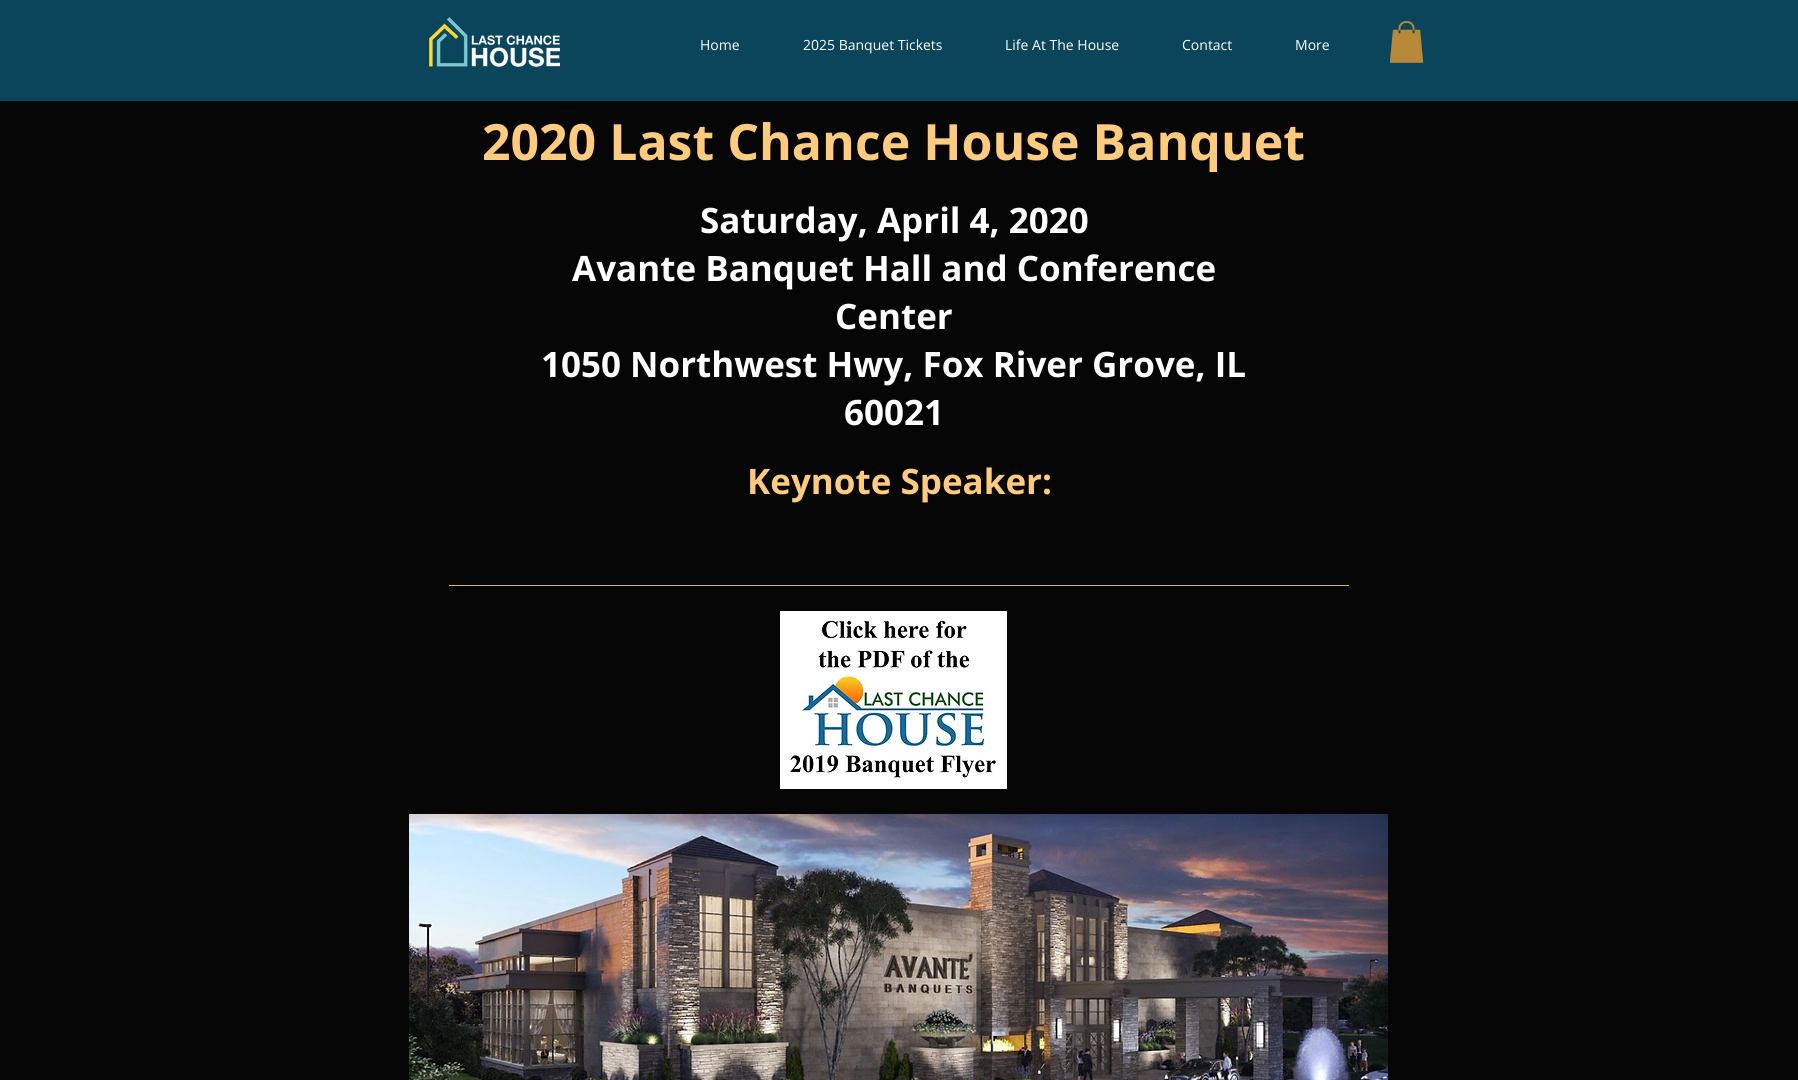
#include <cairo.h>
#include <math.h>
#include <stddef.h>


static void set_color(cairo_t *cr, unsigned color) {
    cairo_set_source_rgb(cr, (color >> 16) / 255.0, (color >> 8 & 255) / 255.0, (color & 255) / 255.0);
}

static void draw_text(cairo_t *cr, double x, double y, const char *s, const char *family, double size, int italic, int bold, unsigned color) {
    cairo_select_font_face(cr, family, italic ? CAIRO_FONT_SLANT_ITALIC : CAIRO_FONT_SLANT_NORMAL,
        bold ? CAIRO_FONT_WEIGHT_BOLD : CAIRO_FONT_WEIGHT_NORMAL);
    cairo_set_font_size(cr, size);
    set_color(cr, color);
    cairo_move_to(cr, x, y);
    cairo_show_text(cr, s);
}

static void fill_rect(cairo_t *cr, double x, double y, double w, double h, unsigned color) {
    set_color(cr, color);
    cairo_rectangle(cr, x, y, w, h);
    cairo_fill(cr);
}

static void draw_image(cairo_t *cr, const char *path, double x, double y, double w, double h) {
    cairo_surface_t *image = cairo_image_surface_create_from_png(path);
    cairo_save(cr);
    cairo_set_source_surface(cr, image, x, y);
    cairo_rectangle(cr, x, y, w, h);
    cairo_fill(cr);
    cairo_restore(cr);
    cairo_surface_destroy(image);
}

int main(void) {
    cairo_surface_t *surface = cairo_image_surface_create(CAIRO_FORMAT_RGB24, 1798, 1080);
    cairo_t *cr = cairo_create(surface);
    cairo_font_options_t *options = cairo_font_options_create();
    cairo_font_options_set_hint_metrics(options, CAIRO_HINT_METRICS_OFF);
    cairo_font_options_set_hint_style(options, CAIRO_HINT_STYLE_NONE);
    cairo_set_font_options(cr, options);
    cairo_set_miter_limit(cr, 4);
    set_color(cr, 0x070606);
    cairo_paint(cr);
    fill_rect(cr, 0, 0, 1798, 101, 0x0A455B);
    draw_image(cr, "assets/img1.png", 429, 17, 131, 50);
    draw_text(cr, 700, 50, "Home", "Open Sans", 14, 0, 0, 0xFFFFFF);
    draw_text(cr, 803, 50, "2025 Banquet Tickets", "Open Sans", 14, 0, 0, 0xFFFFFF);
    draw_text(cr, 1005, 50, "Life At The House", "Open Sans", 14, 0, 0, 0xFFFFFF);
    draw_text(cr, 1182, 50, "Contact", "Open Sans", 14, 0, 0, 0xFFFFFF);
    draw_text(cr, 1295, 50, "More", "Open Sans", 14, 0, 0, 0xFFFFFF);
    draw_image(cr, "assets/img2.png", 1389, 21, 35, 42);
    draw_text(cr, 482, 160, "2020 Last Chance House Banquet", "Open Sans", 50, 0, 1, 0xFFCC7F);
    draw_text(cr, 700, 233, "Saturday, April 4, 2020", "Open Sans", 35, 0, 1, 0xFFFFFF);
    draw_text(cr, 572, 281, "Avante Banquet Hall and Conference", "Open Sans", 35, 0, 1, 0xFFFFFF);
    draw_text(cr, 835, 329, "Center", "Open Sans", 35, 0, 1, 0xFFFFFF);
    draw_text(cr, 541, 377, "1050 Northwest Hwy, Fox River Grove, IL", "Open Sans", 35, 0, 1, 0xFFFFFF);
    draw_text(cr, 844, 425, "60021", "Open Sans", 35, 0, 1, 0xFFFFFF);
    draw_text(cr, 747, 494, "Keynote Speaker:", "Open Sans", 35, 0, 1, 0xFFCC7F);
    fill_rect(cr, 449, 585, 900, 1, 0xCFB486);
    draw_image(cr, "assets/img3.png", 780, 611, 227, 178);
    draw_image(cr, "assets/img4.png", 409, 814, 979, 266);
    cairo_surface_write_to_png(surface, "output.png");
    cairo_font_options_destroy(options);
    cairo_destroy(cr);
    cairo_surface_destroy(surface);
    return 0;
}
